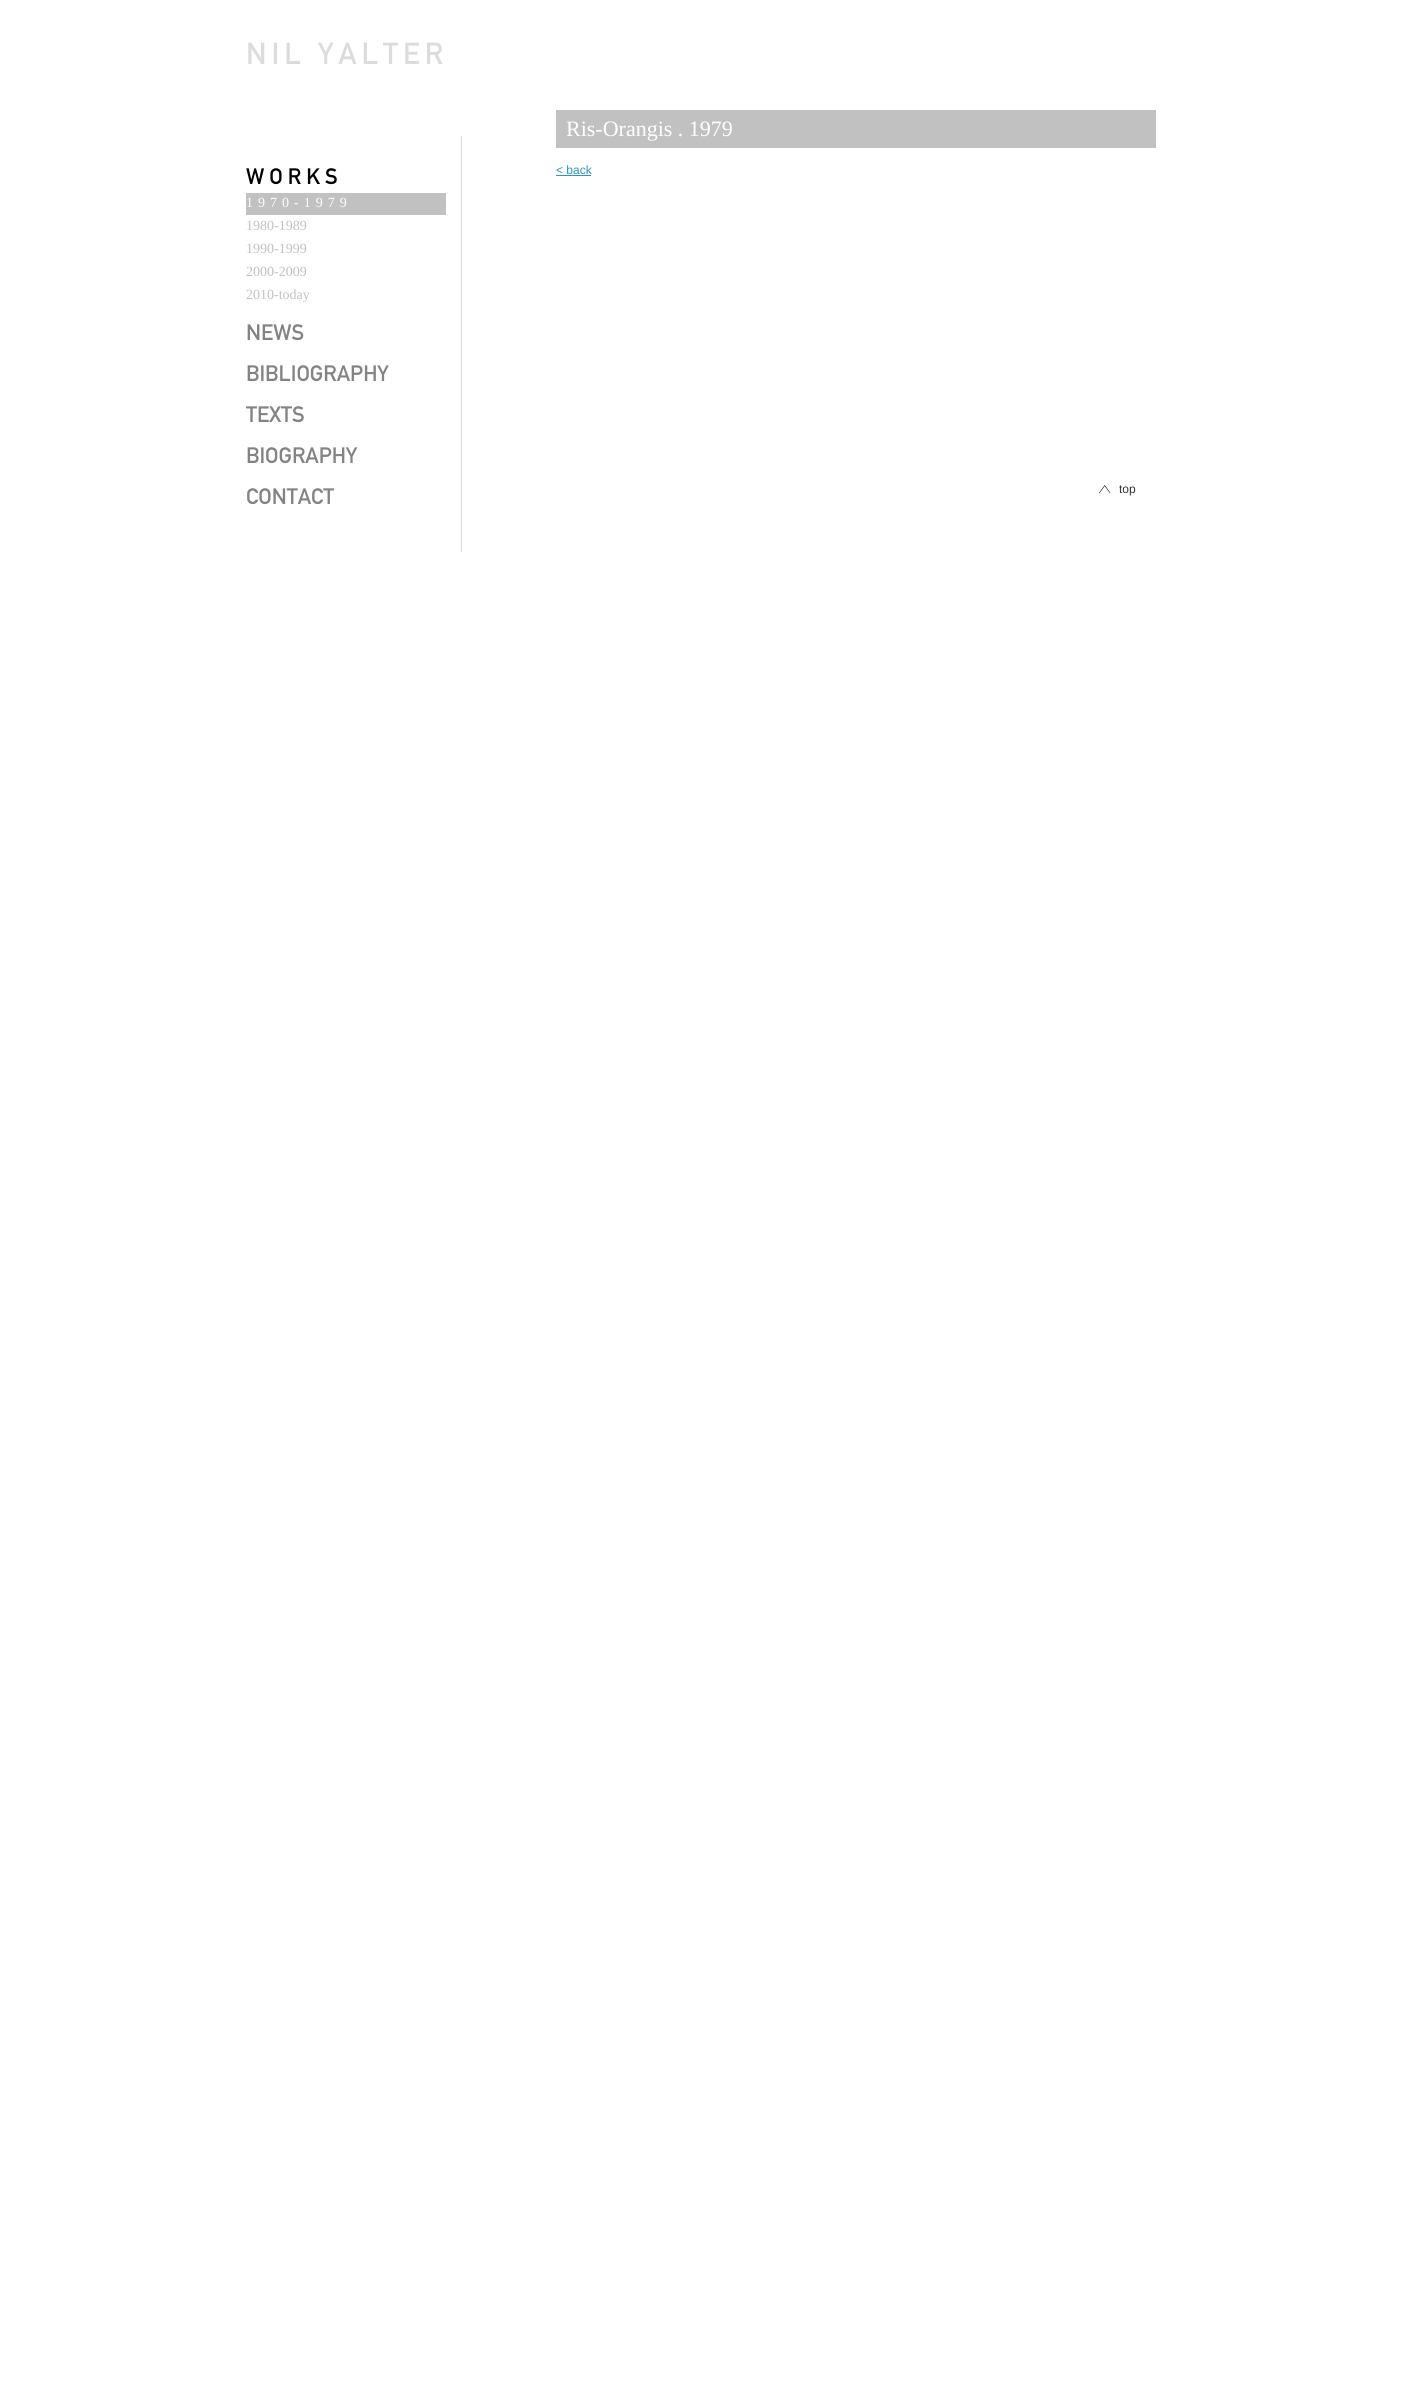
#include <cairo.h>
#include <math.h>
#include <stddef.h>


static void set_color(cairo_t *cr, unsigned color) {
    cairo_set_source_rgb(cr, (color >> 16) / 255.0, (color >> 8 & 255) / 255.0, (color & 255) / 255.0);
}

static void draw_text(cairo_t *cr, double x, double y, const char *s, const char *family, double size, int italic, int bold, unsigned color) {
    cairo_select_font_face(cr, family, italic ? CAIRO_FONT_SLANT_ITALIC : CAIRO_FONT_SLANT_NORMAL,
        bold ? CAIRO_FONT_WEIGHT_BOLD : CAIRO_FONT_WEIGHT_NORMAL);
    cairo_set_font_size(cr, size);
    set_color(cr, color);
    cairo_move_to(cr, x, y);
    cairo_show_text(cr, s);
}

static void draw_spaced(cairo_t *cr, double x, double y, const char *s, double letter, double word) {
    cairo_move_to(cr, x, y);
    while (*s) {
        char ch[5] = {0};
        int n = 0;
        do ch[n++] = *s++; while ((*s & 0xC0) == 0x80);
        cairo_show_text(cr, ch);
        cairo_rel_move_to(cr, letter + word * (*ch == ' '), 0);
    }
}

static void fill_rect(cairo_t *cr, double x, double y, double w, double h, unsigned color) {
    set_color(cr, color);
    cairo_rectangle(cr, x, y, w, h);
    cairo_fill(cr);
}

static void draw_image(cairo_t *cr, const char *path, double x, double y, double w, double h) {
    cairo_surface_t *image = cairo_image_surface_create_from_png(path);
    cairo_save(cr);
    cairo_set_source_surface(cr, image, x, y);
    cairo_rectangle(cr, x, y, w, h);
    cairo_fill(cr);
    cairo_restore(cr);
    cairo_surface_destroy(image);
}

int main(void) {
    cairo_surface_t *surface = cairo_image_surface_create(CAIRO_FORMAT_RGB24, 1401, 2400);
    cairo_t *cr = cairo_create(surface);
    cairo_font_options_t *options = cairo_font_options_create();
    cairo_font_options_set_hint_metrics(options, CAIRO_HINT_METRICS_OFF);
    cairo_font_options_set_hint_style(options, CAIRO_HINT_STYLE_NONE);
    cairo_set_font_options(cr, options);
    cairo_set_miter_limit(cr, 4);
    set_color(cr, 0xFFFFFF);
    cairo_paint(cr);
    cairo_select_font_face(cr, "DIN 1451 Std", CAIRO_FONT_SLANT_NORMAL, CAIRO_FONT_WEIGHT_NORMAL);
    cairo_set_font_size(cr, 30);
    set_color(cr, 0xDCDCDC);
    draw_spaced(cr, 246, 64, "NIL YALTER", 5, 0);
    fill_rect(cr, 461, 136, 1, 416, 0xDCDCDC);
    cairo_set_font_size(cr, 22);
    set_color(cr, 0x000000);
    draw_spaced(cr, 246, 184, "WORKS", 5, 0);
    fill_rect(cr, 246, 193, 200, 22, 0xC1C1C1);
    cairo_select_font_face(cr, "Liberation Serif", CAIRO_FONT_SLANT_NORMAL, CAIRO_FONT_WEIGHT_NORMAL);
    cairo_set_font_size(cr, 14);
    set_color(cr, 0xFFFFFF);
    draw_spaced(cr, 246, 207, "1970-1979", 5, 0);
    draw_text(cr, 246, 230, "1980-1989", "Liberation Serif", 14, 0, 0, 0xC1C1C1);
    draw_text(cr, 246, 253, "1990-1999", "Liberation Serif", 14, 0, 0, 0xC1C1C1);
    draw_text(cr, 246, 276, "2000-2009", "Liberation Serif", 14, 0, 0, 0xC1C1C1);
    draw_text(cr, 246, 299, "2010-today", "Liberation Serif", 14, 0, 0, 0xC1C1C1);
    draw_text(cr, 246, 340, "NEWS", "DIN 1451 Std", 22, 0, 0, 0x838383);
    draw_text(cr, 246, 381, "BIBLIOGRAPHY", "DIN 1451 Std", 22, 0, 0, 0x838383);
    draw_text(cr, 246, 422, "TEXTS", "DIN 1451 Std", 22, 0, 0, 0x838383);
    draw_text(cr, 246, 463, "BIOGRAPHY", "DIN 1451 Std", 22, 0, 0, 0x838383);
    draw_text(cr, 246, 504, "CONTACT", "DIN 1451 Std", 22, 0, 0, 0x838383);
    fill_rect(cr, 556, 110, 600, 38, 0xC1C1C1);
    draw_text(cr, 566, 136, "Ris-Orangis . 1979", "Liberation Serif", 22, 0, 0, 0xFFFFFF);
    draw_text(cr, 556, 174, "< back", "Liberation Sans", 12, 0, 0, 0x2B94C4);
    fill_rect(cr, 556, 175, 35, 1, 0x2B94C4);
    draw_image(cr, "assets/img1.png", 1099, 485, 12, 9);
    draw_text(cr, 1119, 493, "top", "Liberation Sans", 12, 0, 0, 0x333333);
    cairo_surface_write_to_png(surface, "output.png");
    cairo_font_options_destroy(options);
    cairo_destroy(cr);
    cairo_surface_destroy(surface);
    return 0;
}
